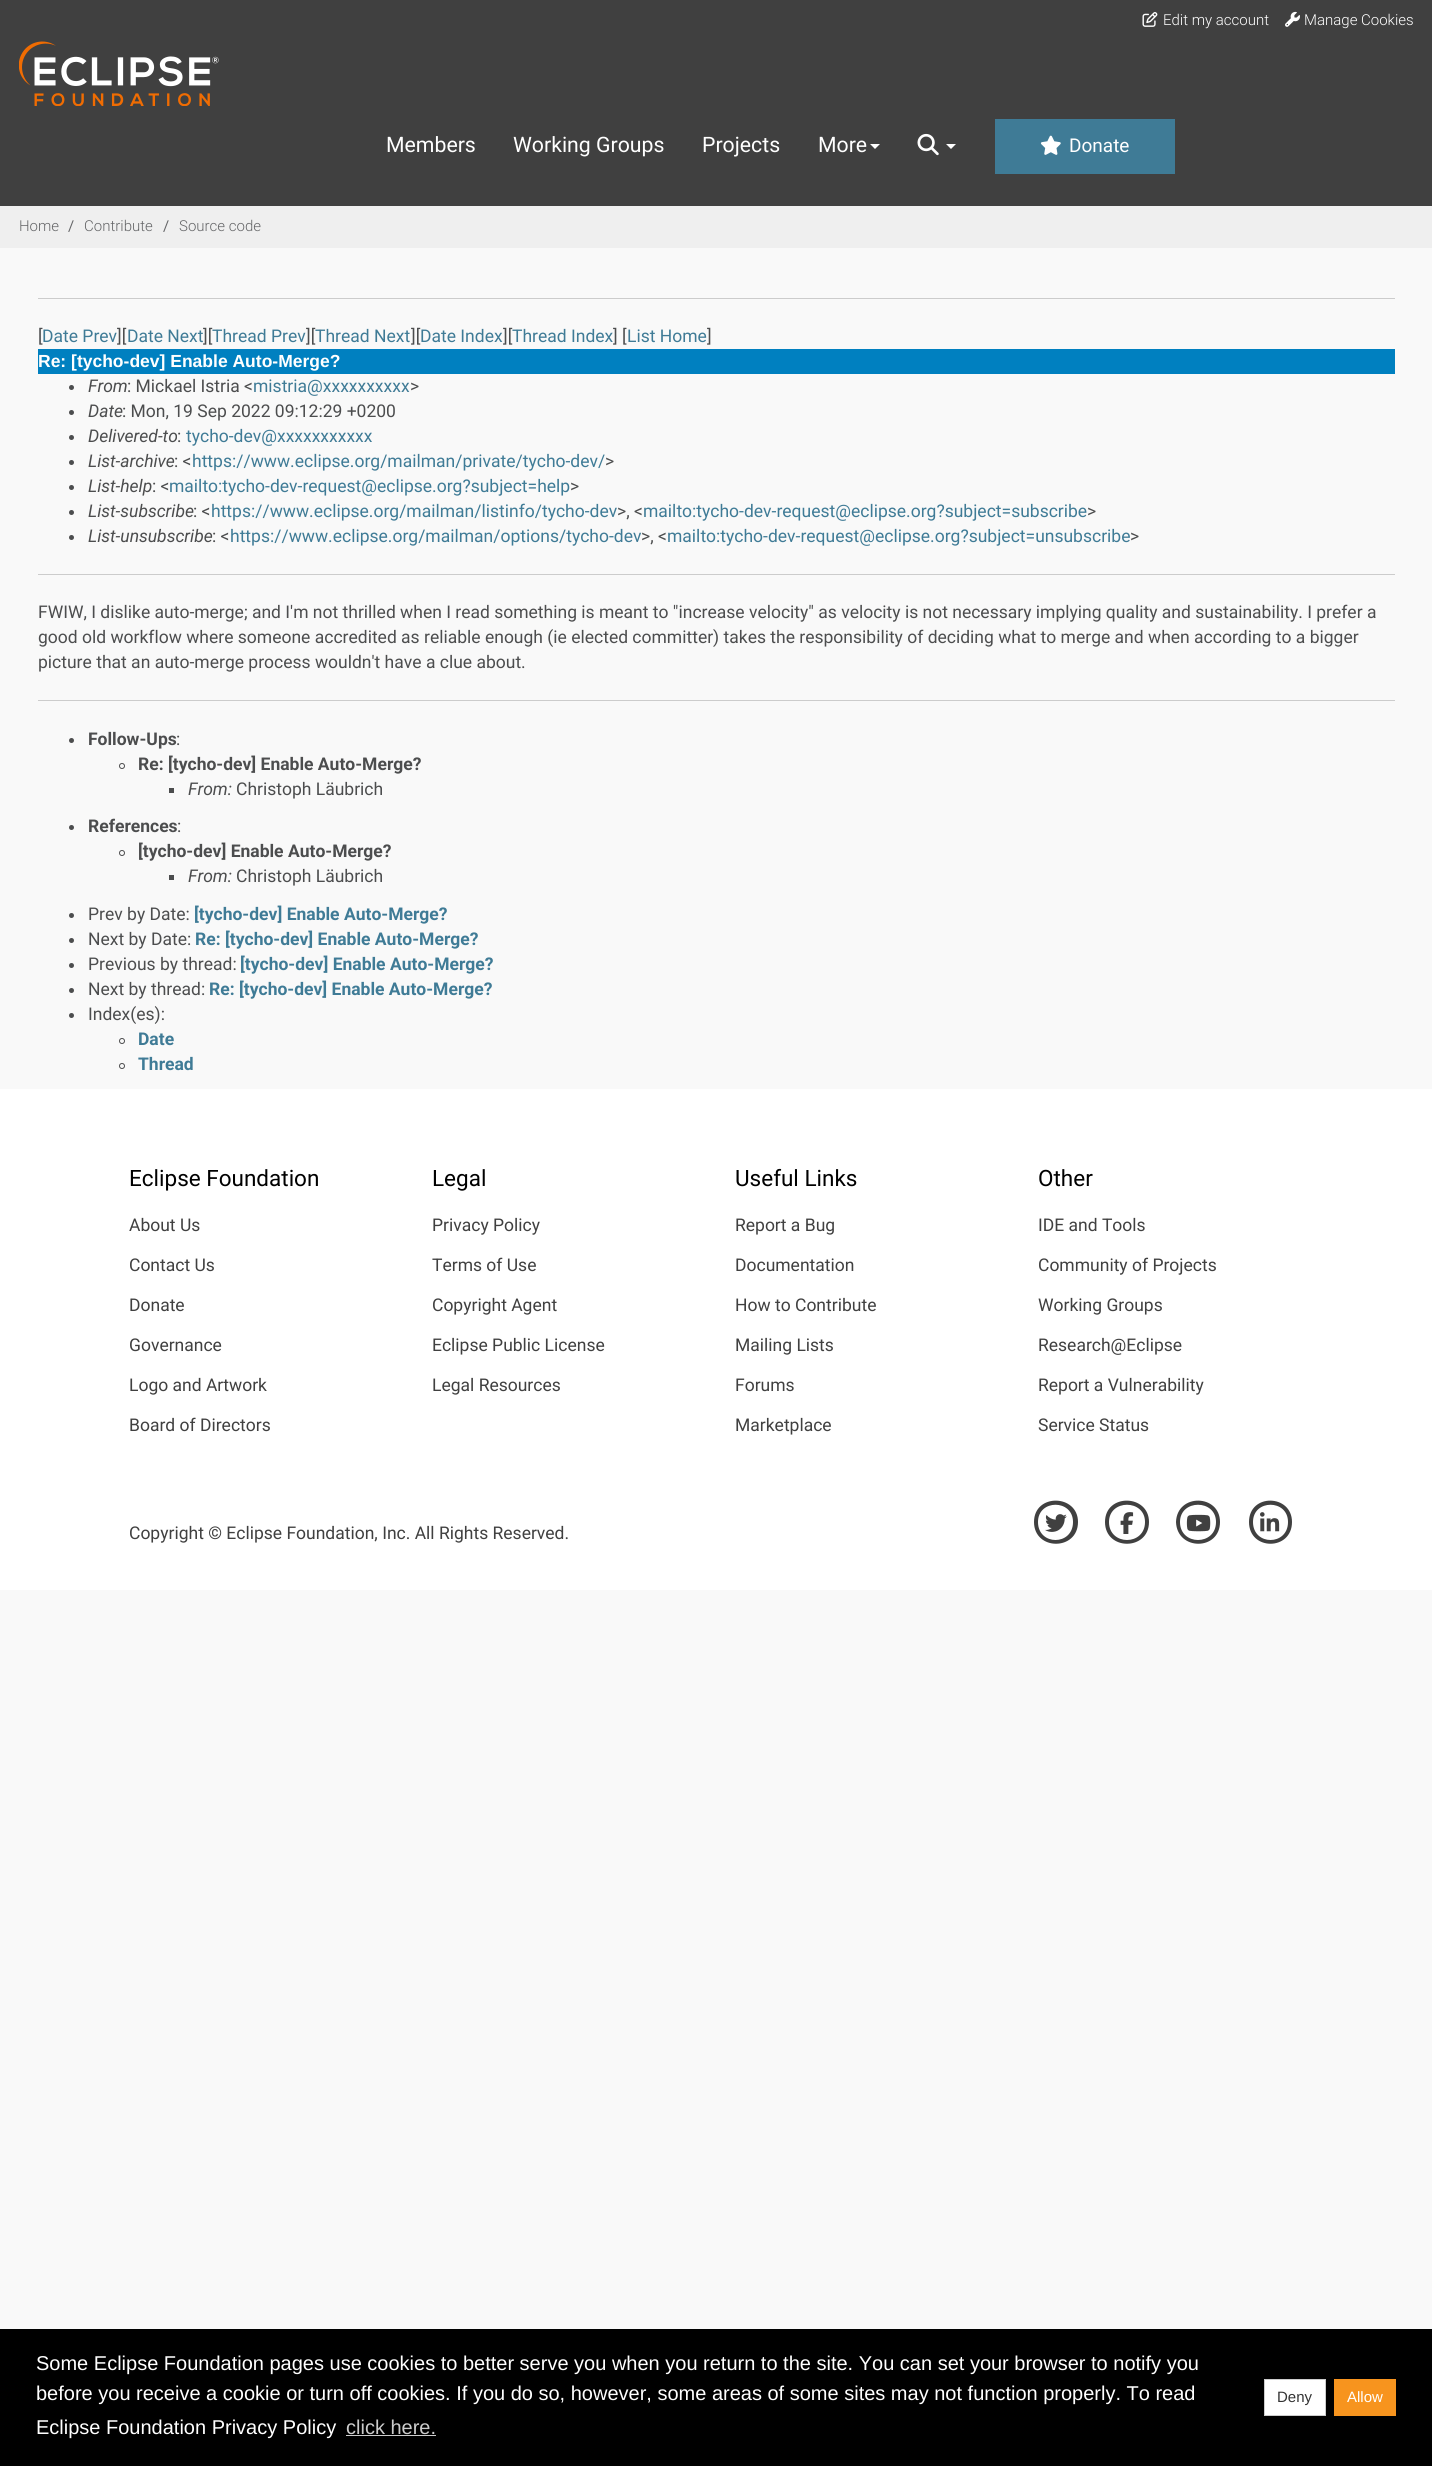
#include <cairo.h>
#include <math.h>
#include <stddef.h>


static void set_color(cairo_t *cr, unsigned color) {
    cairo_set_source_rgb(cr, (color >> 16) / 255.0, (color >> 8 & 255) / 255.0, (color & 255) / 255.0);
}

static void draw_text(cairo_t *cr, double x, double y, const char *s, const char *family, double size, int italic, int bold, unsigned color) {
    cairo_select_font_face(cr, family, italic ? CAIRO_FONT_SLANT_ITALIC : CAIRO_FONT_SLANT_NORMAL,
        bold ? CAIRO_FONT_WEIGHT_BOLD : CAIRO_FONT_WEIGHT_NORMAL);
    cairo_set_font_size(cr, size);
    set_color(cr, color);
    cairo_move_to(cr, x, y);
    cairo_show_text(cr, s);
}

static void fill_rect(cairo_t *cr, double x, double y, double w, double h, unsigned color) {
    set_color(cr, color);
    cairo_rectangle(cr, x, y, w, h);
    cairo_fill(cr);
}

static void draw_image(cairo_t *cr, const char *path, double x, double y, double w, double h) {
    cairo_surface_t *image = cairo_image_surface_create_from_png(path);
    cairo_save(cr);
    cairo_set_source_surface(cr, image, x, y);
    cairo_rectangle(cr, x, y, w, h);
    cairo_fill(cr);
    cairo_restore(cr);
    cairo_surface_destroy(image);
}

int main(void) {
    cairo_surface_t *surface = cairo_image_surface_create(CAIRO_FORMAT_RGB24, 1432, 2466);
    cairo_t *cr = cairo_create(surface);
    cairo_font_options_t *options = cairo_font_options_create();
    cairo_font_options_set_hint_metrics(options, CAIRO_HINT_METRICS_OFF);
    cairo_font_options_set_hint_style(options, CAIRO_HINT_STYLE_NONE);
    cairo_set_font_options(cr, options);
    cairo_set_miter_limit(cr, 4);
    set_color(cr, 0xF9F9F9);
    cairo_paint(cr);
    fill_rect(cr, 0, 0, 1432, 206, 0x404040);
    draw_image(cr, "assets/img1.png", 1142, 12, 16, 15);
    draw_text(cr, 1163, 25, "Edit my account", "Roboto Light", 15, 0, 0, 0xFFFFFF);
    draw_image(cr, "assets/img2.png", 1285, 11, 15, 16);
    draw_text(cr, 1304, 25, "Manage Cookies", "Roboto Light", 15, 0, 0, 0xFFFFFF);
    draw_image(cr, "assets/img3.png", 19, 41, 200, 65);
    draw_text(cr, 386, 152, "Members", "Roboto", 21.25, 0, 0, 0xFFFFFF);
    draw_text(cr, 513, 152, "Working Groups", "Roboto", 21.25, 0, 0, 0xFFFFFF);
    draw_text(cr, 702, 152, "Projects", "Roboto", 21.25, 0, 0, 0xFFFFFF);
    draw_text(cr, 818, 152, "More", "Roboto", 21.25, 0, 0, 0xFFFFFF);
    cairo_new_path(cr);
    cairo_move_to(cr, 870, 144);
    cairo_line_to(cr, 880, 144);
    cairo_line_to(cr, 875, 149);
    cairo_close_path(cr);
    cairo_fill(cr);
    draw_image(cr, "assets/img4.png", 917, 133, 22, 23);
    cairo_new_path(cr);
    cairo_move_to(cr, 946, 144);
    cairo_line_to(cr, 956, 144);
    cairo_line_to(cr, 951, 149);
    cairo_close_path(cr);
    cairo_fill(cr);
    fill_rect(cr, 995, 119, 180, 55, 0x3F7B96);
    draw_image(cr, "assets/img5.png", 1040, 135, 21, 20);
    draw_text(cr, 1069, 152, "Donate", "Roboto", 19, 0, 0, 0xFFFFFF);
    fill_rect(cr, 0, 206, 1432, 42, 0xEFEFEF);
    draw_text(cr, 19, 231, "Home", "Roboto Light", 15, 0, 0, 0x656668);
    draw_text(cr, 68, 231, "/", "Roboto", 15, 0, 0, 0x656668);
    draw_text(cr, 84, 231, "Contribute", "Roboto Light", 15, 0, 0, 0x656668);
    draw_text(cr, 163, 231, "/", "Roboto", 15, 0, 0, 0x656668);
    draw_text(cr, 179, 231, "Source code", "Roboto Light", 15, 0, 0, 0x656668);
    fill_rect(cr, 38, 298, 1357, 1, 0xCCCCCC);
    draw_text(cr, 38, 342, "[", "Roboto", 17.5, 0, 0, 0x4C4D4E);
    draw_text(cr, 42, 342, "Date Prev", "Roboto", 17.5, 0, 0, 0x3F7B96);
    draw_text(cr, 117, 342, "][", "Roboto", 17.5, 0, 0, 0x4C4D4E);
    draw_text(cr, 127, 342, "Date Next", "Roboto", 17.5, 0, 0, 0x3F7B96);
    draw_text(cr, 203, 342, "][", "Roboto", 17.5, 0, 0, 0x4C4D4E);
    draw_text(cr, 212, 342, "Thread Prev", "Roboto", 17.5, 0, 0, 0x3F7B96);
    draw_text(cr, 306, 342, "][", "Roboto", 17.5, 0, 0, 0x4C4D4E);
    draw_text(cr, 315, 342, "Thread Next", "Roboto", 17.5, 0, 0, 0x3F7B96);
    draw_text(cr, 411, 342, "][", "Roboto", 17.5, 0, 0, 0x4C4D4E);
    draw_text(cr, 420, 342, "Date Index", "Roboto", 17.5, 0, 0, 0x3F7B96);
    draw_text(cr, 503, 342, "][", "Roboto", 17.5, 0, 0, 0x4C4D4E);
    draw_text(cr, 512, 342, "Thread Index", "Roboto", 17.5, 0, 0, 0x3F7B96);
    draw_text(cr, 613, 342, "] [", "Roboto", 17.5, 0, 0, 0x4C4D4E);
    draw_text(cr, 627, 342, "List Home", "Roboto", 17.5, 0, 0, 0x3F7B96);
    draw_text(cr, 707, 342, "]", "Roboto", 17.5, 0, 0, 0x4C4D4E);
    fill_rect(cr, 38, 349, 1357, 25, 0x0080C0);
    draw_text(cr, 38, 367, "Re: [tycho-dev] Enable Auto-Merge?", "Liberation Sans", 17.5, 0, 1, 0xFFFFFF);
    set_color(cr, 0x4C4D4E);
    cairo_new_path(cr);
    cairo_arc(cr, 71.5, 387.5, 2.5, 0, 2 * M_PI);
    cairo_fill(cr);
    draw_text(cr, 88, 392, "From", "Roboto", 17.5, 1, 0, 0x4C4D4E);
    draw_text(cr, 127, 392, ": Mickael Istria <", "Roboto", 17.5, 0, 0, 0x4C4D4E);
    draw_text(cr, 253, 392, "mistria@xxxxxxxxxx", "Roboto", 17.5, 0, 0, 0x3F7B96);
    draw_text(cr, 410, 392, ">", "Roboto", 17.5, 0, 0, 0x4C4D4E);
    cairo_new_path(cr);
    cairo_arc(cr, 71.5, 412.5, 2.5, 0, 2 * M_PI);
    cairo_fill(cr);
    draw_text(cr, 88, 417, "Date", "Roboto", 17.5, 1, 0, 0x4C4D4E);
    draw_text(cr, 122, 417, ": Mon, 19 Sep 2022 09:12:29 +0200", "Roboto", 17.5, 0, 0, 0x4C4D4E);
    cairo_new_path(cr);
    cairo_arc(cr, 71.5, 437.5, 2.5, 0, 2 * M_PI);
    cairo_fill(cr);
    draw_text(cr, 88, 442, "Delivered-to", "Roboto", 17.5, 1, 0, 0x4C4D4E);
    draw_text(cr, 177, 442, ":", "Roboto", 17.5, 0, 0, 0x4C4D4E);
    draw_text(cr, 186, 442, "tycho-dev@xxxxxxxxxxx", "Roboto", 17.5, 0, 0, 0x3F7B96);
    set_color(cr, 0x4C4D4E);
    cairo_new_path(cr);
    cairo_arc(cr, 71.5, 462.5, 2.5, 0, 2 * M_PI);
    cairo_fill(cr);
    draw_text(cr, 88, 467, "List-archive", "Roboto", 17.5, 1, 0, 0x4C4D4E);
    draw_text(cr, 174, 467, ": <", "Roboto", 17.5, 0, 0, 0x4C4D4E);
    draw_text(cr, 192, 467, "https://www.eclipse.org/mailman/private/tycho-dev/", "Roboto", 17.5, 0, 0, 0x3F7B96);
    draw_text(cr, 605, 467, ">", "Roboto", 17.5, 0, 0, 0x4C4D4E);
    cairo_new_path(cr);
    cairo_arc(cr, 71.5, 487.5, 2.5, 0, 2 * M_PI);
    cairo_fill(cr);
    draw_text(cr, 88, 492, "List-help", "Roboto", 17.5, 1, 0, 0x4C4D4E);
    draw_text(cr, 152, 492, ": <", "Roboto", 17.5, 0, 0, 0x4C4D4E);
    draw_text(cr, 169, 492, "mailto:tycho-dev-request@eclipse.org?subject=help", "Roboto", 17.5, 0, 0, 0x3F7B96);
    draw_text(cr, 570, 492, ">", "Roboto", 17.5, 0, 0, 0x4C4D4E);
    cairo_new_path(cr);
    cairo_arc(cr, 71.5, 512.5, 2.5, 0, 2 * M_PI);
    cairo_fill(cr);
    draw_text(cr, 88, 517, "List-subscribe", "Roboto", 17.5, 1, 0, 0x4C4D4E);
    draw_text(cr, 193, 517, ": <", "Roboto", 17.5, 0, 0, 0x4C4D4E);
    draw_text(cr, 211, 517, "https://www.eclipse.org/mailman/listinfo/tycho-dev", "Roboto", 17.5, 0, 0, 0x3F7B96);
    draw_text(cr, 617, 517, ">, <", "Roboto", 17.5, 0, 0, 0x4C4D4E);
    draw_text(cr, 643, 517, "mailto:tycho-dev-request@eclipse.org?subject=subscribe", "Roboto", 17.5, 0, 0, 0x3F7B96);
    draw_text(cr, 1087, 517, ">", "Roboto", 17.5, 0, 0, 0x4C4D4E);
    cairo_new_path(cr);
    cairo_arc(cr, 71.5, 537.5, 2.5, 0, 2 * M_PI);
    cairo_fill(cr);
    draw_text(cr, 88, 542, "List-unsubscribe", "Roboto", 17.5, 1, 0, 0x4C4D4E);
    draw_text(cr, 212, 542, ": <", "Roboto", 17.5, 0, 0, 0x4C4D4E);
    draw_text(cr, 230, 542, "https://www.eclipse.org/mailman/options/tycho-dev", "Roboto", 17.5, 0, 0, 0x3F7B96);
    draw_text(cr, 641, 542, ">, <", "Roboto", 17.5, 0, 0, 0x4C4D4E);
    draw_text(cr, 667, 542, "mailto:tycho-dev-request@eclipse.org?subject=unsubscribe", "Roboto", 17.5, 0, 0, 0x3F7B96);
    draw_text(cr, 1130, 542, ">", "Roboto", 17.5, 0, 0, 0x4C4D4E);
    fill_rect(cr, 38, 574, 1357, 1, 0xCCCCCC);
    draw_text(cr, 38, 618, "FWIW, I dislike auto-merge; and I'm not thrilled when I read something is meant to \"increase velocity\" as velocity is not necessary implying quality and sustainability. I prefer a", "Roboto", 17.5, 0, 0, 0x4C4D4E);
    draw_text(cr, 38, 643, "good old workflow where someone accredited as reliable enough (ie elected committer) takes the responsibility of deciding what to merge and when according to a bigger", "Roboto", 17.5, 0, 0, 0x4C4D4E);
    draw_text(cr, 38, 668, "picture that an auto-merge process wouldn't have a clue about.", "Roboto", 17.5, 0, 0, 0x4C4D4E);
    fill_rect(cr, 38, 700, 1357, 1, 0xCCCCCC);
    set_color(cr, 0x4C4D4E);
    cairo_new_path(cr);
    cairo_arc(cr, 71.5, 740.5, 2.5, 0, 2 * M_PI);
    cairo_fill(cr);
    draw_text(cr, 88, 745, "Follow-Ups", "Roboto", 17.5, 0, 1, 0x4C4D4E);
    draw_text(cr, 176, 745, ":", "Roboto", 17.5, 0, 0, 0x4C4D4E);
    cairo_new_path(cr);
    cairo_arc(cr, 122, 766, 2.5, 0, 2 * M_PI);
    cairo_set_line_width(cr, 1);
    cairo_stroke(cr);
    draw_text(cr, 138, 770, "Re: [tycho-dev] Enable Auto-Merge?", "Roboto", 17.5, 0, 1, 0x4C4D4E);
    fill_rect(cr, 169, 788, 5, 5, 0x4C4D4E);
    draw_text(cr, 188, 795, "From:", "Roboto", 17.5, 1, 0, 0x4C4D4E);
    draw_text(cr, 236, 795, "Christoph Läubrich", "Roboto", 17.5, 0, 0, 0x4C4D4E);
    cairo_new_path(cr);
    cairo_arc(cr, 71.5, 827.5, 2.5, 0, 2 * M_PI);
    cairo_fill(cr);
    draw_text(cr, 88, 832, "References", "Roboto", 17.5, 0, 1, 0x4C4D4E);
    draw_text(cr, 177, 832, ":", "Roboto", 17.5, 0, 0, 0x4C4D4E);
    cairo_new_path(cr);
    cairo_arc(cr, 122, 853, 2.5, 0, 2 * M_PI);
    cairo_stroke(cr);
    draw_text(cr, 138, 857, "[tycho-dev] Enable Auto-Merge?", "Roboto", 17.5, 0, 1, 0x4C4D4E);
    fill_rect(cr, 169, 875, 5, 5, 0x4C4D4E);
    draw_text(cr, 188, 882, "From:", "Roboto", 17.5, 1, 0, 0x4C4D4E);
    draw_text(cr, 236, 882, "Christoph Läubrich", "Roboto", 17.5, 0, 0, 0x4C4D4E);
    cairo_new_path(cr);
    cairo_arc(cr, 71.5, 915.5, 2.5, 0, 2 * M_PI);
    cairo_fill(cr);
    draw_text(cr, 88, 920, "Prev by Date:", "Roboto", 17.5, 0, 0, 0x4C4D4E);
    draw_text(cr, 194, 920, "[tycho-dev] Enable Auto-Merge?", "Roboto", 17.5, 0, 1, 0x3F7B96);
    set_color(cr, 0x4C4D4E);
    cairo_new_path(cr);
    cairo_arc(cr, 71.5, 940.5, 2.5, 0, 2 * M_PI);
    cairo_fill(cr);
    draw_text(cr, 88, 945, "Next by Date:", "Roboto", 17.5, 0, 0, 0x4C4D4E);
    draw_text(cr, 195, 945, "Re: [tycho-dev] Enable Auto-Merge?", "Roboto", 17.5, 0, 1, 0x3F7B96);
    set_color(cr, 0x4C4D4E);
    cairo_new_path(cr);
    cairo_arc(cr, 71.5, 965.5, 2.5, 0, 2 * M_PI);
    cairo_fill(cr);
    draw_text(cr, 88, 970, "Previous by thread:", "Roboto", 17.5, 0, 0, 0x4C4D4E);
    draw_text(cr, 240, 970, "[tycho-dev] Enable Auto-Merge?", "Roboto", 17.5, 0, 1, 0x3F7B96);
    set_color(cr, 0x4C4D4E);
    cairo_new_path(cr);
    cairo_arc(cr, 71.5, 990.5, 2.5, 0, 2 * M_PI);
    cairo_fill(cr);
    draw_text(cr, 88, 995, "Next by thread:", "Roboto", 17.5, 0, 0, 0x4C4D4E);
    draw_text(cr, 209, 995, "Re: [tycho-dev] Enable Auto-Merge?", "Roboto", 17.5, 0, 1, 0x3F7B96);
    set_color(cr, 0x4C4D4E);
    cairo_new_path(cr);
    cairo_arc(cr, 71.5, 1015.5, 2.5, 0, 2 * M_PI);
    cairo_fill(cr);
    draw_text(cr, 88, 1020, "Index(es):", "Roboto", 17.5, 0, 0, 0x4C4D4E);
    cairo_new_path(cr);
    cairo_arc(cr, 122, 1041, 2.5, 0, 2 * M_PI);
    cairo_stroke(cr);
    draw_text(cr, 138, 1045, "Date", "Roboto", 17.5, 0, 1, 0x3F7B96);
    cairo_new_path(cr);
    cairo_arc(cr, 122, 1066, 2.5, 0, 2 * M_PI);
    set_color(cr, 0x4C4D4E);
    cairo_stroke(cr);
    draw_text(cr, 138, 1070, "Thread", "Roboto", 17.5, 0, 1, 0x3F7B96);
    fill_rect(cr, 0, 1089, 1432, 501, 0xFFFFFF);
    draw_text(cr, 129, 1186, "Eclipse Foundation", "Roboto", 22.5, 0, 0, 0x000000);
    draw_text(cr, 129, 1231, "About Us", "Roboto", 17.5, 0, 0, 0x404040);
    draw_text(cr, 129, 1271, "Contact Us", "Roboto", 17.5, 0, 0, 0x404040);
    draw_text(cr, 129, 1311, "Donate", "Roboto", 17.5, 0, 0, 0x404040);
    draw_text(cr, 129, 1351, "Governance", "Roboto", 17.5, 0, 0, 0x404040);
    draw_text(cr, 129, 1391, "Logo and Artwork", "Roboto", 17.5, 0, 0, 0x404040);
    draw_text(cr, 129, 1431, "Board of Directors", "Roboto", 17.5, 0, 0, 0x404040);
    draw_text(cr, 432, 1186, "Legal", "Roboto", 22.5, 0, 0, 0x000000);
    draw_text(cr, 432, 1231, "Privacy Policy", "Roboto", 17.5, 0, 0, 0x404040);
    draw_text(cr, 432, 1271, "Terms of Use", "Roboto", 17.5, 0, 0, 0x404040);
    draw_text(cr, 432, 1311, "Copyright Agent", "Roboto", 17.5, 0, 0, 0x404040);
    draw_text(cr, 432, 1351, "Eclipse Public License", "Roboto", 17.5, 0, 0, 0x404040);
    draw_text(cr, 432, 1391, "Legal Resources", "Roboto", 17.5, 0, 0, 0x404040);
    draw_text(cr, 735, 1186, "Useful Links", "Roboto", 22.5, 0, 0, 0x000000);
    draw_text(cr, 735, 1231, "Report a Bug", "Roboto", 17.5, 0, 0, 0x404040);
    draw_text(cr, 735, 1271, "Documentation", "Roboto", 17.5, 0, 0, 0x404040);
    draw_text(cr, 735, 1311, "How to Contribute", "Roboto", 17.5, 0, 0, 0x404040);
    draw_text(cr, 735, 1351, "Mailing Lists", "Roboto", 17.5, 0, 0, 0x404040);
    draw_text(cr, 735, 1391, "Forums", "Roboto", 17.5, 0, 0, 0x404040);
    draw_text(cr, 735, 1431, "Marketplace", "Roboto", 17.5, 0, 0, 0x404040);
    draw_text(cr, 1038, 1186, "Other", "Roboto", 22.5, 0, 0, 0x000000);
    draw_text(cr, 1038, 1231, "IDE and Tools", "Roboto", 17.5, 0, 0, 0x404040);
    draw_text(cr, 1038, 1271, "Community of Projects", "Roboto", 17.5, 0, 0, 0x404040);
    draw_text(cr, 1038, 1311, "Working Groups", "Roboto", 17.5, 0, 0, 0x404040);
    draw_text(cr, 1038, 1351, "Research@Eclipse", "Roboto", 17.5, 0, 0, 0x404040);
    draw_text(cr, 1038, 1391, "Report a Vulnerability", "Roboto", 17.5, 0, 0, 0x404040);
    draw_text(cr, 1038, 1431, "Service Status", "Roboto", 17.5, 0, 0, 0x404040);
    draw_text(cr, 129, 1539, "Copyright © Eclipse Foundation, Inc. All Rights Reserved.", "Roboto", 17.5, 0, 0, 0x404040);
    cairo_new_path(cr);
    cairo_move_to(cr, 1073, 1522);
    cairo_curve_to(cr, 1073, 1499, 1038, 1499, 1038, 1522);
    cairo_curve_to(cr, 1038, 1546, 1073, 1546, 1073, 1522);
    cairo_close_path(cr);
    cairo_move_to(cr, 1034, 1522);
    cairo_curve_to(cr, 1034, 1493, 1078, 1494, 1078, 1522);
    cairo_curve_to(cr, 1078, 1551, 1034, 1551, 1034, 1522);
    cairo_close_path(cr);
    cairo_fill(cr);
    draw_image(cr, "assets/img6.png", 1045, 1514, 22, 18);
    cairo_new_path(cr);
    cairo_move_to(cr, 1145, 1522);
    cairo_curve_to(cr, 1145, 1499, 1109, 1499, 1109, 1522);
    cairo_curve_to(cr, 1109, 1546, 1145, 1546, 1145, 1522);
    cairo_close_path(cr);
    cairo_move_to(cr, 1105, 1522);
    cairo_curve_to(cr, 1105, 1493, 1149, 1494, 1149, 1522);
    cairo_curve_to(cr, 1149, 1551, 1105, 1551, 1105, 1522);
    cairo_close_path(cr);
    cairo_fill(cr);
    draw_image(cr, "assets/img7.png", 1120, 1512, 14, 22);
    cairo_new_path(cr);
    cairo_move_to(cr, 1216, 1522);
    cairo_curve_to(cr, 1216, 1499, 1180, 1499, 1180, 1522);
    cairo_curve_to(cr, 1180, 1546, 1216, 1546, 1216, 1522);
    cairo_close_path(cr);
    cairo_move_to(cr, 1176, 1522);
    cairo_curve_to(cr, 1177, 1493, 1220, 1494, 1220, 1522);
    cairo_curve_to(cr, 1220, 1551, 1177, 1551, 1176, 1522);
    cairo_close_path(cr);
    cairo_fill(cr);
    draw_image(cr, "assets/img8.png", 1186, 1514, 25, 18);
    cairo_new_path(cr);
    cairo_move_to(cr, 1288, 1522);
    cairo_curve_to(cr, 1288, 1499, 1253, 1499, 1253, 1522);
    cairo_curve_to(cr, 1253, 1546, 1288, 1546, 1288, 1522);
    cairo_close_path(cr);
    cairo_move_to(cr, 1249, 1522);
    cairo_curve_to(cr, 1249, 1493, 1292, 1494, 1292, 1522);
    cairo_curve_to(cr, 1292, 1551, 1249, 1551, 1249, 1522);
    cairo_close_path(cr);
    cairo_fill(cr);
    draw_image(cr, "assets/img9.png", 1260, 1512, 20, 20);
    fill_rect(cr, 0, 2329, 1432, 137, 0x000000);
    draw_text(cr, 36, 2370, "Some Eclipse Foundation pages use cookies to better serve you when you return to the site. You can set your browser to notify you", "Liberation Sans", 20, 0, 0, 0xFFFFFF);
    draw_text(cr, 36, 2400, "before you receive a cookie or turn off cookies. If you do so, however, some areas of some sites may not function properly. To read", "Liberation Sans", 20, 0, 0, 0xFFFFFF);
    draw_text(cr, 36, 2434, "Eclipse Foundation Privacy Policy", "Liberation Sans", 20, 0, 0, 0xFFFFFF);
    draw_text(cr, 346, 2434, "click here.", "Liberation Sans", 20, 0, 0, 0xCCCCCC);
    fill_rect(cr, 346, 2435, 90, 1, 0xCCCCCC);
    set_color(cr, 0xFFFFFF);
    cairo_rectangle(cr, 1264.5, 2379.5, 61, 36);
    cairo_fill_preserve(cr);
    set_color(cr, 0xCCCCCC);
    cairo_stroke(cr);
    draw_text(cr, 1277, 2402, "Deny", "Liberation Sans", 15, 0, 0, 0x333333);
    fill_rect(cr, 1334, 2379, 62, 37, 0xF7941E);
    draw_text(cr, 1347, 2402, "Allow", "Liberation Sans", 15, 0, 0, 0xFFFFFF);
    cairo_surface_write_to_png(surface, "output.png");
    cairo_font_options_destroy(options);
    cairo_destroy(cr);
    cairo_surface_destroy(surface);
    return 0;
}
